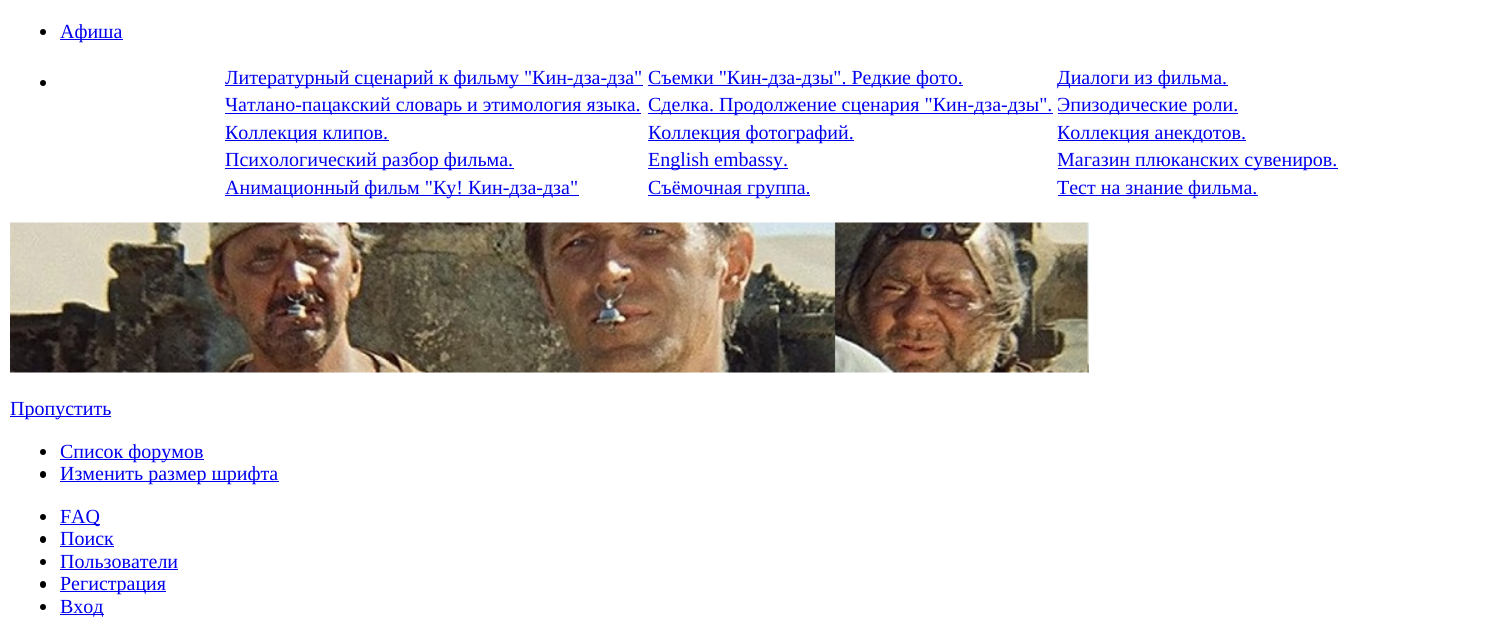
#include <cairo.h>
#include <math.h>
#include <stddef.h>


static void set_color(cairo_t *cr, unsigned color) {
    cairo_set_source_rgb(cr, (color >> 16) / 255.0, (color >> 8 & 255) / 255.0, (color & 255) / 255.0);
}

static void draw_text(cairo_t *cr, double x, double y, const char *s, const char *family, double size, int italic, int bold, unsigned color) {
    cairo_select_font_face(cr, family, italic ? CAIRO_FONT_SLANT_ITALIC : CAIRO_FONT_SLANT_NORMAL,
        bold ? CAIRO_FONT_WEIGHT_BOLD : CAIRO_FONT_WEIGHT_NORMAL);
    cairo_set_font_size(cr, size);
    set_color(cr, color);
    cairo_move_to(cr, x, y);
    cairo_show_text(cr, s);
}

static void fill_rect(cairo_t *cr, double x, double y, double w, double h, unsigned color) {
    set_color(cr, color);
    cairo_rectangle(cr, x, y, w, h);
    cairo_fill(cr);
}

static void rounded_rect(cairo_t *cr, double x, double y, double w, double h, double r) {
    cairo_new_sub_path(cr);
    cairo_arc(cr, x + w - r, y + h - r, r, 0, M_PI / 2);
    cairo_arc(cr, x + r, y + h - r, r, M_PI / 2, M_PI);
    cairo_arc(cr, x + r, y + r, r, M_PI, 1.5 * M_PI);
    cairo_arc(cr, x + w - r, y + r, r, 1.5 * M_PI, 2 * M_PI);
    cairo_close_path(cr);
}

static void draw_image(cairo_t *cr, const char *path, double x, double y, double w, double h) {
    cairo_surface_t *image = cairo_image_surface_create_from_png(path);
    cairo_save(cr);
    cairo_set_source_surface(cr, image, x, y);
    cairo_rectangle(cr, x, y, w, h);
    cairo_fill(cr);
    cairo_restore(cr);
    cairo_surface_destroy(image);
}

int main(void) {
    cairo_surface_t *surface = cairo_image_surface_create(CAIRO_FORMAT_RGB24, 1512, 630);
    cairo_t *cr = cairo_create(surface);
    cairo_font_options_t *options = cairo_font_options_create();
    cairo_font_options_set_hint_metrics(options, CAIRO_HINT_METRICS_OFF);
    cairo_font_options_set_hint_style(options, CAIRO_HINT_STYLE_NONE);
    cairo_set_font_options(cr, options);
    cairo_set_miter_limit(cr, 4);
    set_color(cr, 0xFFFFFF);
    cairo_paint(cr);
    set_color(cr, 0x000000);
    cairo_arc(cr, 43, 32, 3, 0, 2 * M_PI);
    cairo_fill(cr);
    fill_rect(cr, 60, 39, 63, 1, 0x0000EE);
    draw_text(cr, 60, 38, "Афиша", "Liberation Serif", 20, 0, 0, 0x0000EE);
    set_color(cr, 0x000000);
    cairo_new_path(cr);
    cairo_arc(cr, 43, 83, 3, 0, 2 * M_PI);
    cairo_fill(cr);
    fill_rect(cr, 225, 85, 418, 1, 0x0000EE);
    draw_text(cr, 225, 84, "Литературный сценарий к фильму \"Кин-дза-дза\"", "Liberation Serif", 20, 0, 0, 0x0000EE);
    fill_rect(cr, 648, 85, 315, 1, 0x0000EE);
    draw_text(cr, 648, 84, "Съемки \"Кин-дза-дзы\". Редкие фото.", "Liberation Serif", 20, 0, 0, 0x0000EE);
    fill_rect(cr, 1058, 85, 170, 1, 0x0000EE);
    draw_text(cr, 1057, 84, "Диалоги из фильма.", "Liberation Serif", 20, 0, 0, 0x0000EE);
    fill_rect(cr, 225, 113, 416, 1, 0x0000EE);
    draw_text(cr, 225, 111, "Чатлано-пацакский словарь и этимология языка.", "Liberation Serif", 20, 0, 0, 0x0000EE);
    fill_rect(cr, 648, 113, 405, 1, 0x0000EE);
    draw_text(cr, 648, 111, "Сделка. Продолжение сценария \"Кин-дза-дзы\".", "Liberation Serif", 20, 0, 0, 0x0000EE);
    fill_rect(cr, 1058, 113, 180, 1, 0x0000EE);
    draw_text(cr, 1057, 111, "Эпизодические роли.", "Liberation Serif", 20, 0, 0, 0x0000EE);
    fill_rect(cr, 225, 140, 164, 1, 0x0000EE);
    draw_text(cr, 225, 139, "Коллекция клипов.", "Liberation Serif", 20, 0, 0, 0x0000EE);
    fill_rect(cr, 648, 140, 206, 1, 0x0000EE);
    draw_text(cr, 648, 139, "Коллекция фотографий.", "Liberation Serif", 20, 0, 0, 0x0000EE);
    fill_rect(cr, 1058, 140, 188, 1, 0x0000EE);
    draw_text(cr, 1057, 139, "Коллекция анекдотов.", "Liberation Serif", 20, 0, 0, 0x0000EE);
    fill_rect(cr, 225, 168, 289, 1, 0x0000EE);
    draw_text(cr, 225, 166, "Психологический разбор фильма.", "Liberation Serif", 20, 0, 0, 0x0000EE);
    fill_rect(cr, 648, 168, 140, 1, 0x0000EE);
    draw_text(cr, 648, 166, "English embassy.", "Liberation Serif", 20, 0, 0, 0x0000EE);
    fill_rect(cr, 1058, 168, 280, 1, 0x0000EE);
    draw_text(cr, 1057, 166, "Магазин плюканских сувениров.", "Liberation Serif", 20, 0, 0, 0x0000EE);
    fill_rect(cr, 225, 195, 354, 1, 0x0000EE);
    draw_text(cr, 225, 194, "Анимационный фильм \"Ку! Кин-дза-дза\"", "Liberation Serif", 20, 0, 0, 0x0000EE);
    fill_rect(cr, 648, 195, 162, 1, 0x0000EE);
    draw_text(cr, 648, 194, "Съёмочная группа.", "Liberation Serif", 20, 0, 0, 0x0000EE);
    fill_rect(cr, 1058, 195, 200, 1, 0x0000EE);
    draw_text(cr, 1057, 194, "Тест на знание фильма.", "Liberation Serif", 20, 0, 0, 0x0000EE);
    draw_image(cr, "assets/img1.png", 10, 222, 1079, 151);
    fill_rect(cr, 10, 416, 101, 1, 0x0000EE);
    draw_text(cr, 10, 415, "Пропустить", "Liberation Serif", 20, 0, 0, 0x0000EE);
    set_color(cr, 0x000000);
    cairo_new_path(cr);
    cairo_arc(cr, 43, 452, 3, 0, 2 * M_PI);
    cairo_fill(cr);
    fill_rect(cr, 60, 459, 144, 1, 0x0000EE);
    draw_text(cr, 60, 458, "Список форумов", "Liberation Serif", 20, 0, 0, 0x0000EE);
    set_color(cr, 0x000000);
    rounded_rect(cr, 40, 471, 6, 7, 3);
    cairo_fill(cr);
    fill_rect(cr, 60, 481, 219, 1, 0x0000EE);
    draw_text(cr, 60, 480, "Изменить размер шрифта", "Liberation Serif", 20, 0, 0, 0x0000EE);
    set_color(cr, 0x000000);
    cairo_new_path(cr);
    cairo_arc(cr, 43, 517, 3, 0, 2 * M_PI);
    cairo_fill(cr);
    fill_rect(cr, 60, 524, 40, 1, 0x0000EE);
    draw_text(cr, 60, 523, "FAQ", "Liberation Serif", 20, 0, 0, 0x0000EE);
    set_color(cr, 0x000000);
    rounded_rect(cr, 40, 536, 6, 7, 3);
    cairo_fill(cr);
    draw_text(cr, 60, 545, "Поиск", "Liberation Serif", 20, 0, 0, 0x0000EE);
    fill_rect(cr, 60, 546, 54, 1, 0x0000EE);
    set_color(cr, 0x000000);
    cairo_new_path(cr);
    cairo_arc(cr, 43, 562, 3, 0, 2 * M_PI);
    cairo_fill(cr);
    draw_text(cr, 60, 568, "Пользователи", "Liberation Serif", 20, 0, 0, 0x0000EE);
    fill_rect(cr, 60, 569, 118, 1, 0x0000EE);
    set_color(cr, 0x000000);
    rounded_rect(cr, 40, 581, 6, 7, 3);
    cairo_fill(cr);
    fill_rect(cr, 60, 591, 106, 1, 0x0000EE);
    draw_text(cr, 60, 590, "Регистрация", "Liberation Serif", 20, 0, 0, 0x0000EE);
    set_color(cr, 0x000000);
    cairo_new_path(cr);
    cairo_arc(cr, 43, 607, 3, 0, 2 * M_PI);
    cairo_fill(cr);
    fill_rect(cr, 60, 614, 44, 1, 0x0000EE);
    draw_text(cr, 60, 613, "Вход", "Liberation Serif", 20, 0, 0, 0x0000EE);
    cairo_surface_write_to_png(surface, "output.png");
    cairo_font_options_destroy(options);
    cairo_destroy(cr);
    cairo_surface_destroy(surface);
    return 0;
}
